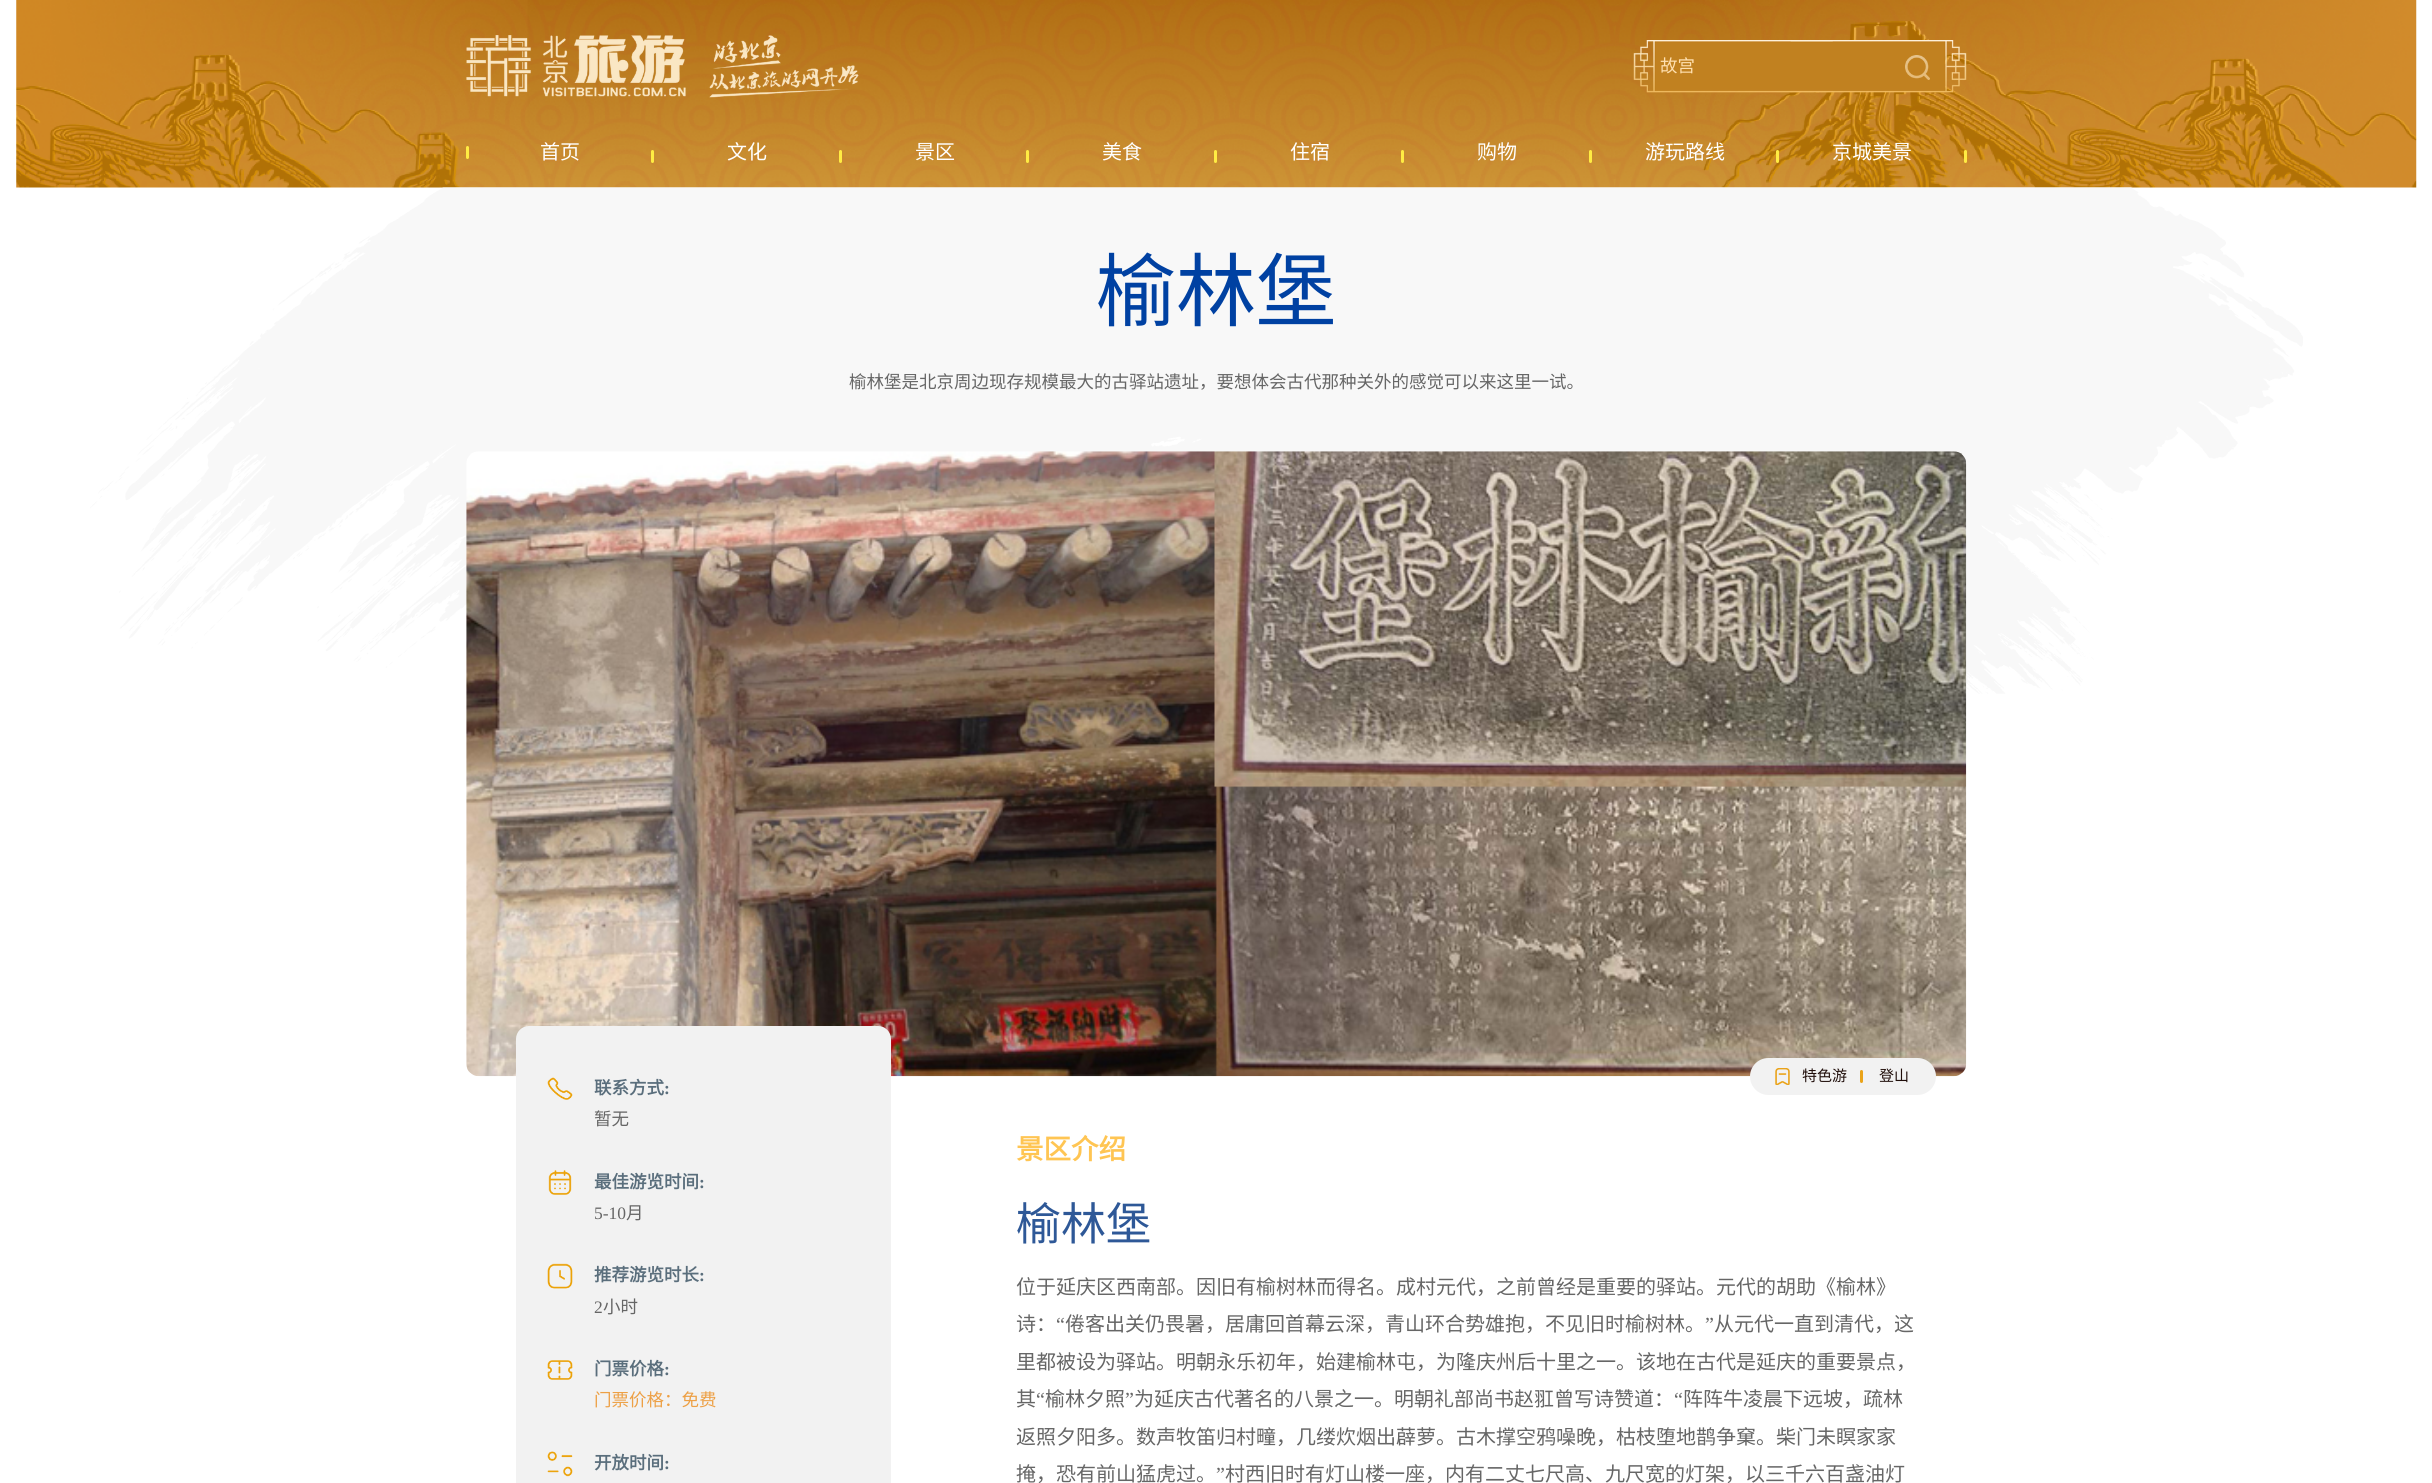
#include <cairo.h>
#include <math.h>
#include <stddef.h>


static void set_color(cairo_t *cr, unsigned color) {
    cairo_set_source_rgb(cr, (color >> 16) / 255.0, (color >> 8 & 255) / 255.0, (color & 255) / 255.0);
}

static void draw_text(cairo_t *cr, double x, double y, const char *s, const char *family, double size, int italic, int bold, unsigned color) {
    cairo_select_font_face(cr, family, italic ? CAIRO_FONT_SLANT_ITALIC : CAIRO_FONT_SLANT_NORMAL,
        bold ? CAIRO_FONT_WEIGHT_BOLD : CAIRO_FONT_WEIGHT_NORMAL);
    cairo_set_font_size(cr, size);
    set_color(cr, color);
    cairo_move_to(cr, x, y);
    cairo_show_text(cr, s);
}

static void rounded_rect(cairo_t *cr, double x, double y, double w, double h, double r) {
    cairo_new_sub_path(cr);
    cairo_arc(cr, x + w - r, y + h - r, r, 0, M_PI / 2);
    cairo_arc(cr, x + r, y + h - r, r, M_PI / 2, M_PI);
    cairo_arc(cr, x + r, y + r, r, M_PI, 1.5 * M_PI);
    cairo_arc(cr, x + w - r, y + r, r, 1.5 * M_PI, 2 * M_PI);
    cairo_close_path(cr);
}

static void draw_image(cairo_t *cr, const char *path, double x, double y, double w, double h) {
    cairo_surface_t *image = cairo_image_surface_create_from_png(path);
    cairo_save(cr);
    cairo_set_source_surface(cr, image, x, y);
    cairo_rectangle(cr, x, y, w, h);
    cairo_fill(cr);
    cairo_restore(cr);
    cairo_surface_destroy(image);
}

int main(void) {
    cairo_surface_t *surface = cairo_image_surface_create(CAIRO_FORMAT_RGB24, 2432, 1483);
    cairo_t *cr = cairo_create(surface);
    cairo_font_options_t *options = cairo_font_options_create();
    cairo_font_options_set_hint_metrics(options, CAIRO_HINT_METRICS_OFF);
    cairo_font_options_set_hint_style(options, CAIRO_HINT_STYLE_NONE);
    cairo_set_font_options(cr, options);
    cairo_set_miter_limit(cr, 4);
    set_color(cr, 0xFFFFFF);
    cairo_paint(cr);
    draw_image(cr, "assets/img1.png", 16, 0, 2401, 188);
    draw_image(cr, "assets/img2.png", 466, 35, 393, 63);
    draw_image(cr, "assets/img3.png", 1633, 40, 334, 53);
    draw_text(cr, 1660, 72, "故宫", "Noto Sans CJK SC", 17.5, 0, 0, 0xFFE0B0);
    draw_image(cr, "assets/img4.png", 1905, 55, 25, 25);
    set_color(cr, 0xFFEC43);
    rounded_rect(cr, 466, 146, 3, 13, 1.5);
    cairo_fill(cr);
    draw_text(cr, 540, 159, "首页", "Noto Sans CJK SC", 20, 0, 0, 0xFFFFFF);
    set_color(cr, 0xFFEC43);
    rounded_rect(cr, 651, 150, 3, 13, 1.5);
    cairo_fill(cr);
    draw_text(cr, 727, 159, "文化", "Noto Sans CJK SC", 20, 0, 0, 0xFFFFFF);
    set_color(cr, 0xFFEC43);
    rounded_rect(cr, 839, 150, 3, 13, 1.5);
    cairo_fill(cr);
    draw_text(cr, 915, 159, "景区", "Noto Sans CJK SC", 20, 0, 0, 0xFFFFFF);
    set_color(cr, 0xFFEC43);
    rounded_rect(cr, 1026, 150, 3, 13, 1.5);
    cairo_fill(cr);
    draw_text(cr, 1102, 159, "美食", "Noto Sans CJK SC", 20, 0, 0, 0xFFFFFF);
    set_color(cr, 0xFFEC43);
    rounded_rect(cr, 1214, 150, 3, 13, 1.5);
    cairo_fill(cr);
    draw_text(cr, 1290, 159, "住宿", "Noto Sans CJK SC", 20, 0, 0, 0xFFFFFF);
    set_color(cr, 0xFFEC43);
    rounded_rect(cr, 1401, 150, 3, 13, 1.5);
    cairo_fill(cr);
    draw_text(cr, 1477, 159, "购物", "Noto Sans CJK SC", 20, 0, 0, 0xFFFFFF);
    set_color(cr, 0xFFEC43);
    rounded_rect(cr, 1589, 150, 3, 13, 1.5);
    cairo_fill(cr);
    draw_text(cr, 1645, 159, "游玩路线", "Noto Sans CJK SC", 20, 0, 0, 0xFFFFFF);
    set_color(cr, 0xFFEC43);
    rounded_rect(cr, 1776, 150, 3, 13, 1.5);
    cairo_fill(cr);
    draw_text(cr, 1832, 159, "京城美景", "Noto Sans CJK SC", 20, 0, 0, 0xFFFFFF);
    set_color(cr, 0xFFEC43);
    rounded_rect(cr, 1964, 150, 3, 13, 1.5);
    cairo_fill(cr);
    draw_image(cr, "assets/img5.png", 90, 187, 2213, 507);
    draw_text(cr, 1096, 320, "榆林堡", "Noto Sans CJK SC", 80, 0, 0, 0x0041A2);
    draw_text(cr, 849, 388, "榆林堡是北京周边现存规模最大的古驿站遗址，要想体会古代那种关外的感觉可以来这里一试。", "Noto Sans CJK SC", 17.5, 0, 0, 0x666666);
    draw_image(cr, "assets/img6.png", 466, 451, 1501, 626);
    set_color(cr, 0xF2F2F2);
    rounded_rect(cr, 1750, 1058, 186, 37, 18.5);
    cairo_fill(cr);
    draw_image(cr, "assets/img7.png", 1775, 1068, 15, 17);
    draw_text(cr, 1802, 1081, "特色游", "Noto Sans CJK SC", 15, 0, 0, 0x1F0D09);
    set_color(cr, 0xEAA319);
    rounded_rect(cr, 1860, 1070, 3, 13, 1.5);
    cairo_fill(cr);
    draw_text(cr, 1879, 1081, "登山", "Noto Sans CJK SC", 15, 0, 0, 0x1F0D09);
    set_color(cr, 0xF2F2F2);
    rounded_rect(cr, 516, 1026, 375, 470, 13);
    cairo_fill(cr);
    draw_image(cr, "assets/img8.png", 547, 1077, 26, 23);
    draw_text(cr, 594, 1094, "联系方式", "Noto Sans CJK SC", 17.5, 0, 1, 0x5A6E7C);
    draw_text(cr, 664, 1094, ":", "Liberation Serif", 17.5, 0, 1, 0x5A6E7C);
    draw_text(cr, 594, 1125, "暂无", "Noto Sans CJK SC", 17.5, 0, 0, 0x666666);
    draw_image(cr, "assets/img9.png", 548, 1170, 24, 25);
    draw_text(cr, 594, 1188, "最佳游览时间", "Noto Sans CJK SC", 17.5, 0, 1, 0x5A6E7C);
    draw_text(cr, 699, 1188, ":", "Liberation Serif", 17.5, 0, 1, 0x5A6E7C);
    draw_text(cr, 594, 1219, "5-10", "Liberation Serif", 17.5, 0, 0, 0x666666);
    draw_text(cr, 626, 1219, "月", "Noto Sans CJK SC", 17.5, 0, 0, 0x666666);
    draw_image(cr, "assets/img10.png", 547, 1263, 26, 26);
    draw_text(cr, 594, 1281, "推荐游览时长", "Noto Sans CJK SC", 17.5, 0, 1, 0x5A6E7C);
    draw_text(cr, 699, 1281, ":", "Liberation Serif", 17.5, 0, 1, 0x5A6E7C);
    draw_text(cr, 594, 1313, "2", "Liberation Serif", 17.5, 0, 0, 0x666666);
    draw_text(cr, 603, 1313, "小时", "Noto Sans CJK SC", 17.5, 0, 0, 0x666666);
    draw_image(cr, "assets/img11.png", 547, 1360, 26, 20);
    draw_text(cr, 594, 1375, "门票价格", "Noto Sans CJK SC", 17.5, 0, 1, 0x5A6E7C);
    draw_text(cr, 664, 1375, ":", "Liberation Serif", 17.5, 0, 1, 0x5A6E7C);
    draw_text(cr, 594, 1406, "门票价格：免费", "Noto Sans CJK SC", 17.5, 0, 0, 0xEDA045);
    draw_image(cr, "assets/img12.png", 547, 1451, 26, 26);
    draw_text(cr, 594, 1469, "开放时间", "Noto Sans CJK SC", 17.5, 0, 1, 0x5A6E7C);
    draw_text(cr, 664, 1469, ":", "Liberation Serif", 17.5, 0, 1, 0x5A6E7C);
    draw_text(cr, 1016, 1159, "景区介绍", "Noto Sans CJK SC", 27.5, 0, 1, 0xFFC553);
    draw_text(cr, 1016, 1240, "榆林堡", "Noto Sans CJK SC", 45, 0, 0, 0x2E5897);
    draw_text(cr, 1016, 1294, "位于延庆区西南部。因旧有榆树林而得名。成村元代，之前曾经是重要的驿站。元代的胡助《榆林》", "Noto Sans CJK SC", 20, 0, 0, 0x666666);
    draw_text(cr, 1016, 1331, "诗：", "Noto Sans CJK SC", 20, 0, 0, 0x666666);
    draw_text(cr, 1056, 1331, "“", "Liberation Serif", 20, 0, 0, 0x666666);
    draw_text(cr, 1065, 1331, "倦客出关仍畏暑，居庸回首幕云深，青山环合势雄抱，不见旧时榆树林。", "Noto Sans CJK SC", 20, 0, 0, 0x666666);
    draw_text(cr, 1705, 1331, "”", "Liberation Serif", 20, 0, 0, 0x666666);
    draw_text(cr, 1714, 1331, "从元代一直到清代，这", "Noto Sans CJK SC", 20, 0, 0, 0x666666);
    draw_text(cr, 1016, 1369, "里都被设为驿站。明朝永乐初年，始建榆林屯，为隆庆州后十里之一。该地在古代是延庆的重要景点，", "Noto Sans CJK SC", 20, 0, 0, 0x666666);
    draw_text(cr, 1016, 1406, "其", "Noto Sans CJK SC", 20, 0, 0, 0x666666);
    draw_text(cr, 1036, 1406, "“", "Liberation Serif", 20, 0, 0, 0x666666);
    draw_text(cr, 1045, 1406, "榆林夕照", "Noto Sans CJK SC", 20, 0, 0, 0x666666);
    draw_text(cr, 1125, 1406, "”", "Liberation Serif", 20, 0, 0, 0x666666);
    draw_text(cr, 1134, 1406, "为延庆古代著名的八景之一。明朝礼部尚书赵羾曾写诗赞道：", "Noto Sans CJK SC", 20, 0, 0, 0x666666);
    draw_text(cr, 1674, 1406, "“", "Liberation Serif", 20, 0, 0, 0x666666);
    draw_text(cr, 1683, 1406, "阵阵牛凌晨下远坡，疏林", "Noto Sans CJK SC", 20, 0, 0, 0x666666);
    draw_text(cr, 1016, 1444, "返照夕阳多。数声牧笛归村疃，几缕炊烟出薜萝。古木撑空鸦噪晚，枯枝堕地鹊争窠。柴门未瞑家家", "Noto Sans CJK SC", 20, 0, 0, 0x666666);
    draw_text(cr, 1016, 1481, "掩，恐有前山猛虎过。", "Noto Sans CJK SC", 20, 0, 0, 0x666666);
    draw_text(cr, 1216, 1481, "”", "Liberation Serif", 20, 0, 0, 0x666666);
    draw_text(cr, 1225, 1481, "村西旧时有灯山楼一座，内有二丈七尺高、九尺宽的灯架，以三千六百盏油灯", "Noto Sans CJK SC", 20, 0, 0, 0x666666);
    cairo_surface_write_to_png(surface, "output.png");
    cairo_font_options_destroy(options);
    cairo_destroy(cr);
    cairo_surface_destroy(surface);
    return 0;
}
